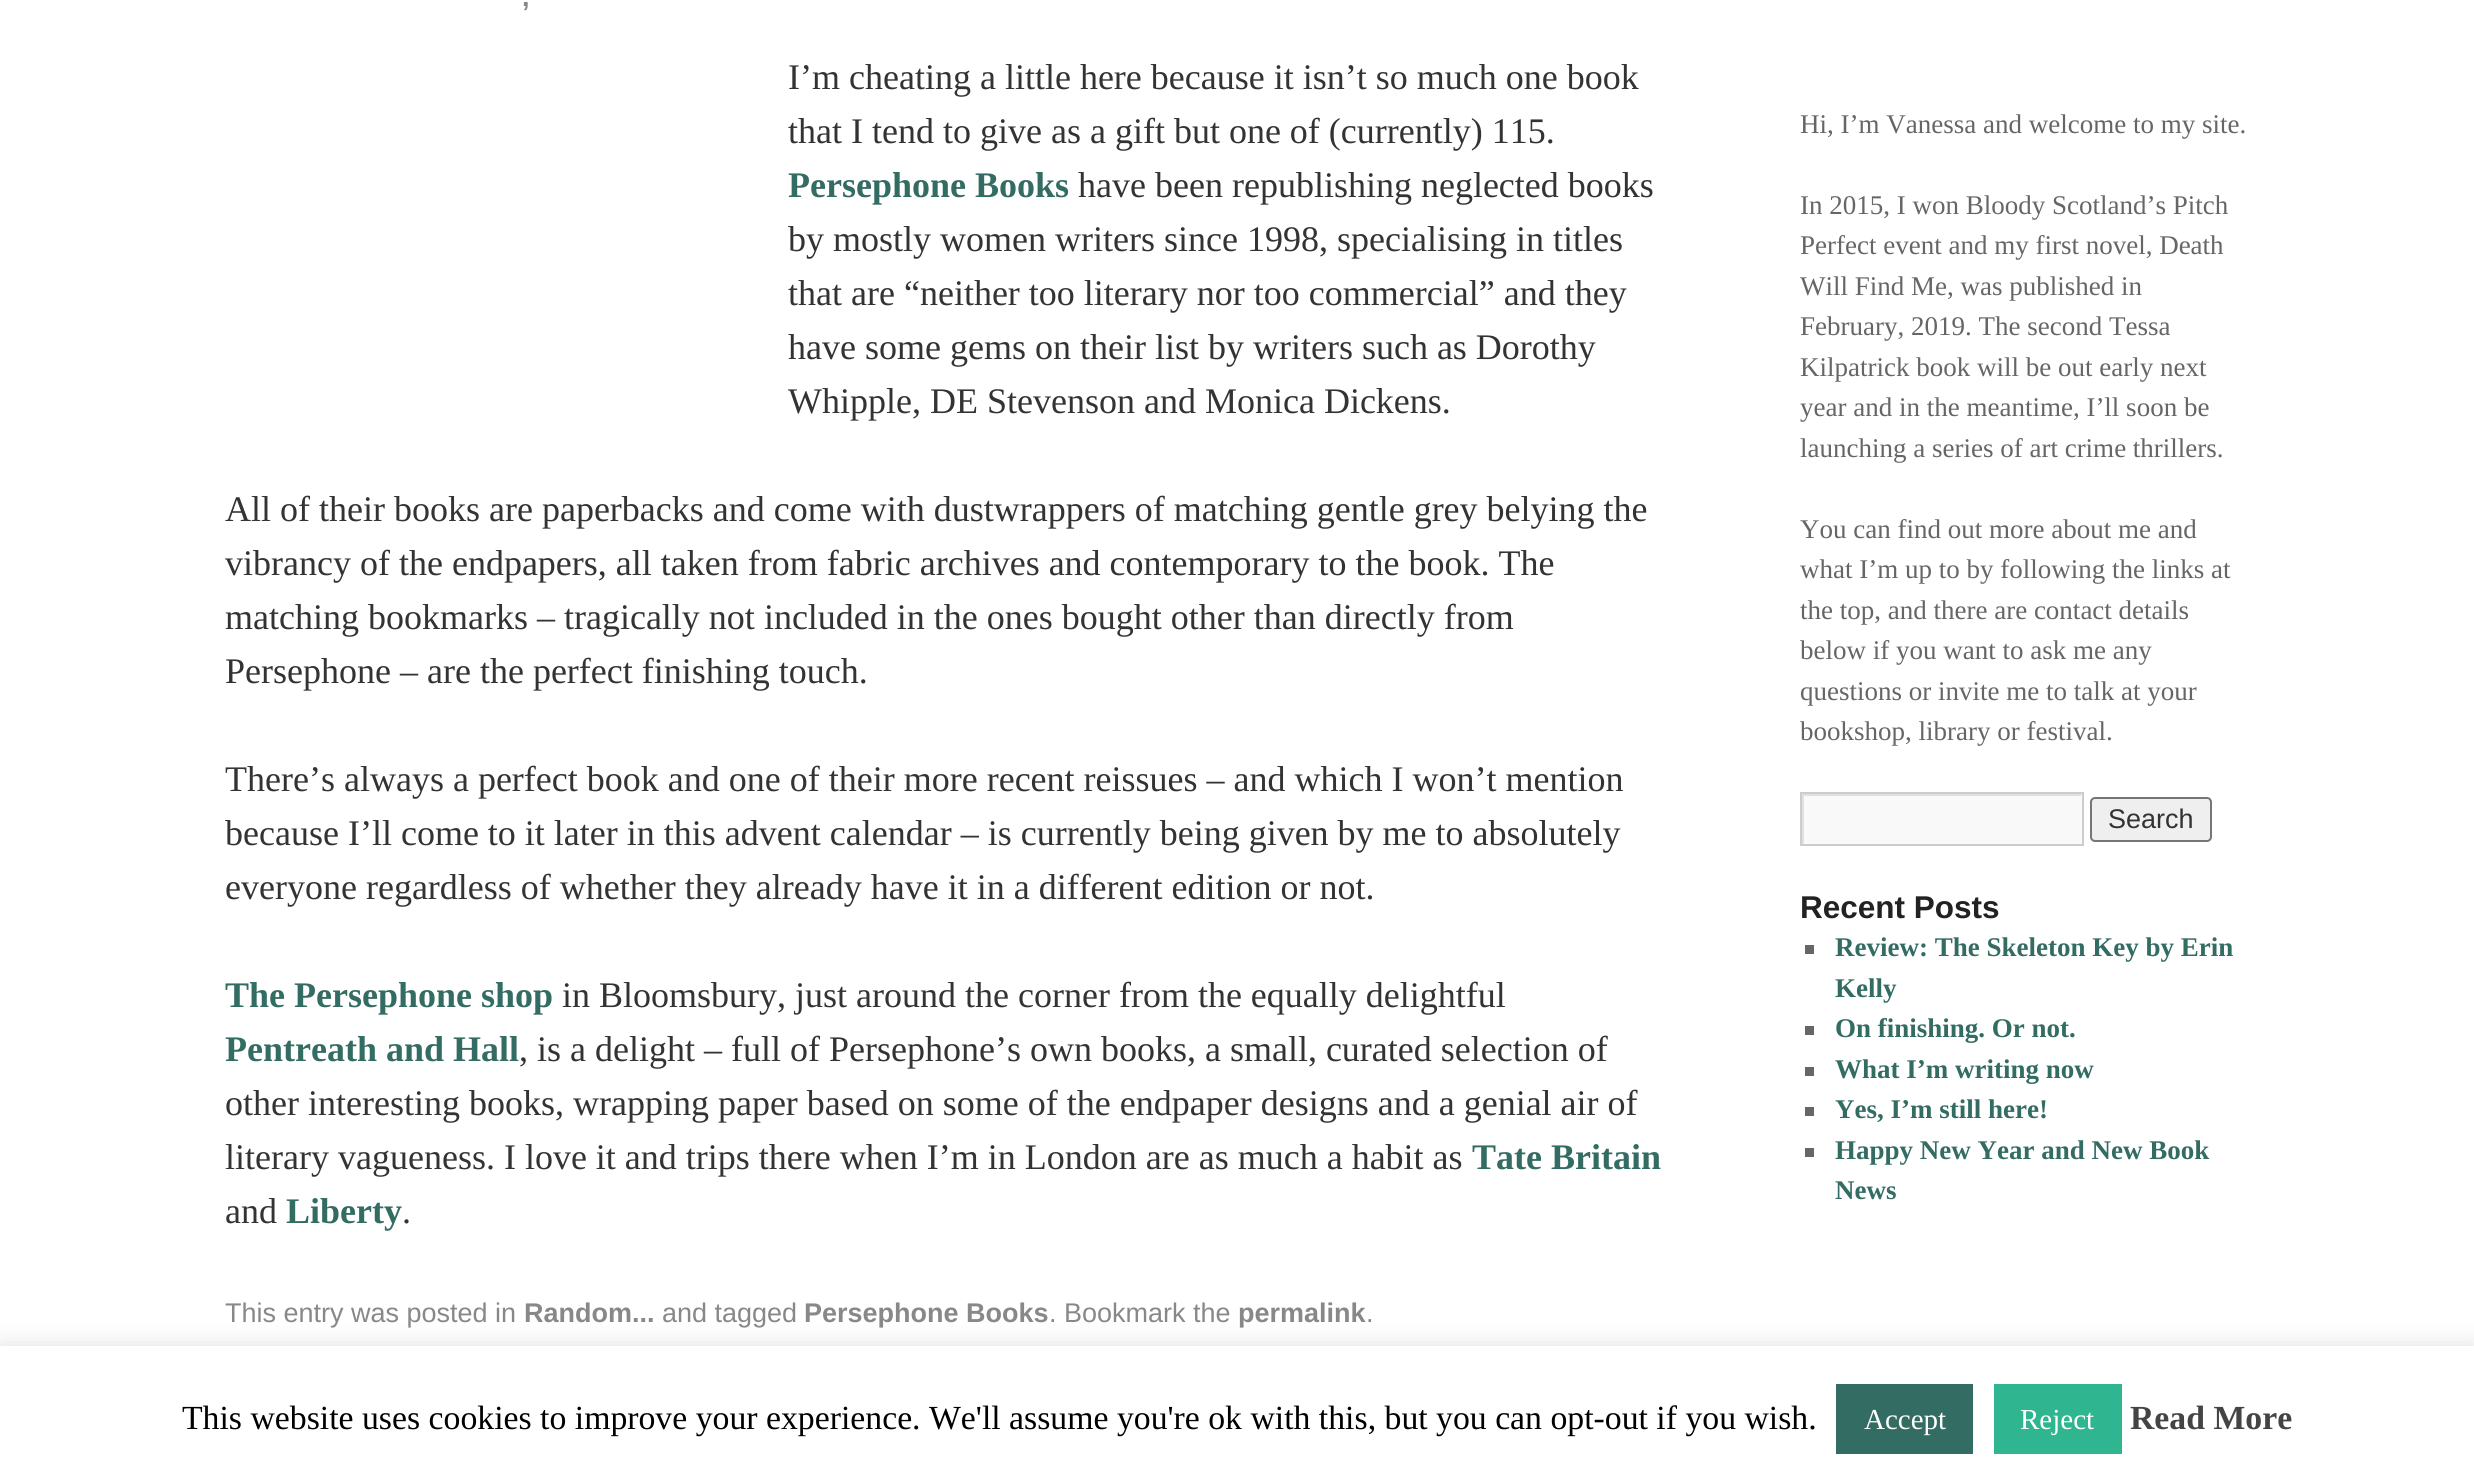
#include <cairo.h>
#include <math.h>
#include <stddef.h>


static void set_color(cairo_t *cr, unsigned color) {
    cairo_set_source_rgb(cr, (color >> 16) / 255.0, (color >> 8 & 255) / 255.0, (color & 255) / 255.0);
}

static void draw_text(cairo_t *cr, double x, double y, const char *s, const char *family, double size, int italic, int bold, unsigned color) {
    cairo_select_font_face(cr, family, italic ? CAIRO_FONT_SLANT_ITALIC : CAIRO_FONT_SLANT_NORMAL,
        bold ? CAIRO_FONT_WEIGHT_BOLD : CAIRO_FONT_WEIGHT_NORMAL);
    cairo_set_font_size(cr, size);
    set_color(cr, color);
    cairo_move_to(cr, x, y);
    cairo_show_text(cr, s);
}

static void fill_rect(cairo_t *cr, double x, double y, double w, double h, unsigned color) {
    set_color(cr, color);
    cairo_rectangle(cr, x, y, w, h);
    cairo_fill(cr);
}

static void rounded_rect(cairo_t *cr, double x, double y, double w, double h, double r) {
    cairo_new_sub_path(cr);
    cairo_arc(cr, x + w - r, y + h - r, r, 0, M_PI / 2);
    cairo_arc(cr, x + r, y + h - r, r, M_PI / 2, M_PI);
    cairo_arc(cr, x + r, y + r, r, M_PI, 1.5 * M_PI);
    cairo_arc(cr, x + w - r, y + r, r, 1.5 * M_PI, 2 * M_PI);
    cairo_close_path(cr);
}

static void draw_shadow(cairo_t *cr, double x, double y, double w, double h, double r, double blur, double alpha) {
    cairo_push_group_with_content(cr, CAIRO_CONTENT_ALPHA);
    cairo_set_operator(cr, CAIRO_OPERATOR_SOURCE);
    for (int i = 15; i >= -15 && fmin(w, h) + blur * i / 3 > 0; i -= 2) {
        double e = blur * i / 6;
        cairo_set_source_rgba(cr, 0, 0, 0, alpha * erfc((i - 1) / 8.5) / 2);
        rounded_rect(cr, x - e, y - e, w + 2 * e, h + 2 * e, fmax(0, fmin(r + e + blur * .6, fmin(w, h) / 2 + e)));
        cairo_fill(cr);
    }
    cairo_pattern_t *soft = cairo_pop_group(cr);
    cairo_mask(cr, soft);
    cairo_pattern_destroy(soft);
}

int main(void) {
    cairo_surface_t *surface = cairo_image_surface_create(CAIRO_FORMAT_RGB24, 2474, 1479);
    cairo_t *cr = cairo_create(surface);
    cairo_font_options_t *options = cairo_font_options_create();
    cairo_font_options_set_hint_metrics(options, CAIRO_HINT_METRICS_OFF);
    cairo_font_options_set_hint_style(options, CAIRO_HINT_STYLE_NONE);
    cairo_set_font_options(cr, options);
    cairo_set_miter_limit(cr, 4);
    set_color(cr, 0xFFFFFF);
    cairo_paint(cr);
    draw_text(cr, 522, 6, ",", "Liberation Sans", 27, 0, 1, 0x888888);
    draw_text(cr, 788, 89, "I’m cheating a little here because it isn’t so much one book", "Liberation Serif", 36, 0, 0, 0x333333);
    draw_text(cr, 788, 143, "that I tend to give as a gift but one of (currently) 115.", "Liberation Serif", 36, 0, 0, 0x333333);
    draw_text(cr, 788, 197, "Persephone Books", "Liberation Serif", 36, 0, 1, 0x336C63);
    draw_text(cr, 1078, 197, "have been republishing neglected books", "Liberation Serif", 36, 0, 0, 0x333333);
    draw_text(cr, 788, 251, "by mostly women writers since 1998, specialising in titles", "Liberation Serif", 36, 0, 0, 0x333333);
    draw_text(cr, 788, 305, "that are “neither too literary nor too commercial” and they", "Liberation Serif", 36, 0, 0, 0x333333);
    draw_text(cr, 788, 359, "have some gems on their list by writers such as Dorothy", "Liberation Serif", 36, 0, 0, 0x333333);
    draw_text(cr, 788, 413, "Whipple, DE Stevenson and Monica Dickens.", "Liberation Serif", 36, 0, 0, 0x333333);
    draw_text(cr, 225, 521, "All of their books are paperbacks and come with dustwrappers of matching gentle grey belying the", "Liberation Serif", 36, 0, 0, 0x333333);
    draw_text(cr, 225, 575, "vibrancy of the endpapers, all taken from fabric archives and contemporary to the book. The", "Liberation Serif", 36, 0, 0, 0x333333);
    draw_text(cr, 225, 629, "matching bookmarks – tragically not included in the ones bought other than directly from", "Liberation Serif", 36, 0, 0, 0x333333);
    draw_text(cr, 225, 683, "Persephone – are the perfect finishing touch.", "Liberation Serif", 36, 0, 0, 0x333333);
    draw_text(cr, 225, 791, "There’s always a perfect book and one of their more recent reissues – and which I won’t mention", "Liberation Serif", 36, 0, 0, 0x333333);
    draw_text(cr, 225, 845, "because I’ll come to it later in this advent calendar – is currently being given by me to absolutely", "Liberation Serif", 36, 0, 0, 0x333333);
    draw_text(cr, 225, 899, "everyone regardless of whether they already have it in a different edition or not.", "Liberation Serif", 36, 0, 0, 0x333333);
    draw_text(cr, 225, 1007, "The Persephone shop", "Liberation Serif", 36, 0, 1, 0x336C63);
    draw_text(cr, 562, 1007, "in Bloomsbury, just around the corner from the equally delightful", "Liberation Serif", 36, 0, 0, 0x333333);
    draw_text(cr, 225, 1061, "Pentreath and Hall", "Liberation Serif", 36, 0, 1, 0x336C63);
    draw_text(cr, 519, 1061, ", is a delight – full of Persephone’s own books, a small, curated selection of", "Liberation Serif", 36, 0, 0, 0x333333);
    draw_text(cr, 225, 1115, "other interesting books, wrapping paper based on some of the endpaper designs and a genial air of", "Liberation Serif", 36, 0, 0, 0x333333);
    draw_text(cr, 225, 1169, "literary vagueness. I love it and trips there when I’m in London are as much a habit as", "Liberation Serif", 36, 0, 0, 0x333333);
    draw_text(cr, 1472, 1169, "Tate Britain", "Liberation Serif", 36, 0, 1, 0x336C63);
    draw_text(cr, 225, 1223, "and", "Liberation Serif", 36, 0, 0, 0x333333);
    draw_text(cr, 286, 1223, "Liberty", "Liberation Serif", 36, 0, 1, 0x336C63);
    draw_text(cr, 402, 1223, ".", "Liberation Serif", 36, 0, 0, 0x333333);
    draw_text(cr, 225, 1322, "This entry was posted in", "Liberation Sans", 27, 0, 0, 0x888888);
    draw_text(cr, 524, 1322, "Random...", "Liberation Sans", 27, 0, 1, 0x888888);
    draw_text(cr, 662, 1322, "and tagged", "Liberation Sans", 27, 0, 0, 0x888888);
    draw_text(cr, 804, 1322, "Persephone Books", "Liberation Sans", 27, 0, 1, 0x888888);
    draw_text(cr, 1049, 1322, ". Bookmark the", "Liberation Sans", 27, 0, 0, 0x888888);
    draw_text(cr, 1238, 1322, "permalink", "Liberation Sans", 27, 0, 1, 0x888888);
    draw_text(cr, 1366, 1322, ".", "Liberation Sans", 27, 0, 0, 0x888888);
    draw_text(cr, 1800, 133, "Hi, I’m Vanessa and welcome to my site.", "Liberation Serif", 27, 0, 0, 0x666666);
    draw_text(cr, 1800, 214, "In 2015, I won Bloody Scotland’s Pitch", "Liberation Serif", 27, 0, 0, 0x666666);
    draw_text(cr, 1800, 254, "Perfect event and my first novel, Death", "Liberation Serif", 27, 0, 0, 0x666666);
    draw_text(cr, 1800, 295, "Will Find Me, was published in", "Liberation Serif", 27, 0, 0, 0x666666);
    draw_text(cr, 1800, 335, "February, 2019. The second Tessa", "Liberation Serif", 27, 0, 0, 0x666666);
    draw_text(cr, 1800, 376, "Kilpatrick book will be out early next", "Liberation Serif", 27, 0, 0, 0x666666);
    draw_text(cr, 1800, 416, "year and in the meantime, I’ll soon be", "Liberation Serif", 27, 0, 0, 0x666666);
    draw_text(cr, 1800, 457, "launching a series of art crime thrillers.", "Liberation Serif", 27, 0, 0, 0x666666);
    draw_text(cr, 1800, 538, "You can find out more about me and", "Liberation Serif", 27, 0, 0, 0x666666);
    draw_text(cr, 1800, 578, "what I’m up to by following the links at", "Liberation Serif", 27, 0, 0, 0x666666);
    draw_text(cr, 1800, 619, "the top, and there are contact details", "Liberation Serif", 27, 0, 0, 0x666666);
    draw_text(cr, 1800, 659, "below if you want to ask me any", "Liberation Serif", 27, 0, 0, 0x666666);
    draw_text(cr, 1800, 700, "questions or invite me to talk at your", "Liberation Serif", 27, 0, 0, 0x666666);
    draw_text(cr, 1800, 740, "bookshop, library or festival.", "Liberation Serif", 27, 0, 0, 0x666666);
    fill_rect(cr, 1804, 794, 278, 50, 0xF9F9F9);
    cairo_save(cr);
    cairo_rectangle(cr, 1802, 794, 279, 50);
    cairo_clip(cr);
    set_color(cr, 0xE0E0E0);
    cairo_set_fill_rule(cr, CAIRO_FILL_RULE_EVEN_ODD);
    cairo_new_path(cr);
    cairo_move_to(cr, 1580, 572);
    cairo_line_to(cr, 2304, 572);
    cairo_line_to(cr, 2304, 1066);
    cairo_line_to(cr, 1580, 1066);
    cairo_close_path(cr);
    cairo_move_to(cr, 1804, 796);
    cairo_line_to(cr, 2084, 796);
    cairo_line_to(cr, 2084, 846);
    cairo_line_to(cr, 1804, 846);
    cairo_close_path(cr);
    cairo_fill(cr);
    cairo_restore(cr);
    cairo_rectangle(cr, 1801, 793, 282, 52);
    set_color(cr, 0xCCCCCC);
    cairo_stroke(cr);
    set_color(cr, 0xEFEFEF);
    rounded_rect(cr, 2091, 798, 120, 43, 4);
    cairo_fill_preserve(cr);
    set_color(cr, 0x767676);
    cairo_stroke(cr);
    draw_text(cr, 2108, 828, "Search", "Liberation Sans", 27, 0, 0, 0x333333);
    draw_text(cr, 1800, 918, "Recent Posts", "Liberation Sans", 31.5, 0, 1, 0x222222);
    fill_rect(cr, 1805, 945, 9, 9, 0x666666);
    draw_text(cr, 1835, 956, "Review: The Skeleton Key by Erin", "Liberation Serif", 27, 0, 1, 0x336C63);
    draw_text(cr, 1835, 997, "Kelly", "Liberation Serif", 27, 0, 1, 0x336C63);
    fill_rect(cr, 1805, 1026, 9, 9, 0x666666);
    draw_text(cr, 1835, 1037, "On finishing. Or not.", "Liberation Serif", 27, 0, 1, 0x336C63);
    fill_rect(cr, 1805, 1067, 9, 9, 0x666666);
    draw_text(cr, 1835, 1078, "What I’m writing now", "Liberation Serif", 27, 0, 1, 0x336C63);
    fill_rect(cr, 1805, 1107, 9, 9, 0x666666);
    draw_text(cr, 1835, 1118, "Yes, I’m still here!", "Liberation Serif", 27, 0, 1, 0x336C63);
    fill_rect(cr, 1805, 1148, 9, 9, 0x666666);
    draw_text(cr, 1835, 1159, "Happy New Year and New Book", "Liberation Serif", 27, 0, 1, 0x336C63);
    draw_text(cr, 1835, 1199, "News", "Liberation Serif", 27, 0, 1, 0x336C63);
    set_color(cr, 0xACABAB);
    draw_shadow(cr, 0, 1343, 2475, 135, 0, 11, 0.3);
    fill_rect(cr, 0, 1346, 2474, 133, 0xFFFFFF);
    draw_text(cr, 182, 1429, "This website uses cookies to improve your experience. We'll assume you're ok with this, but you can opt-out if you wish.", "Liberation Serif", 33.75, 0, 0, 0x000000);
    fill_rect(cr, 1836, 1384, 137, 70, 0x336C63);
    draw_text(cr, 1864, 1429, "Accept", "Liberation Serif", 29, 0, 0, 0xFFFFFF);
    fill_rect(cr, 1994, 1384, 128, 70, 0x2FB58F);
    draw_text(cr, 2020, 1429, "Reject", "Liberation Serif", 29, 0, 0, 0xFFFFFF);
    draw_text(cr, 2130, 1429, "Read More", "Liberation Serif", 33.75, 0, 1, 0x444444);
    cairo_surface_write_to_png(surface, "output.png");
    cairo_font_options_destroy(options);
    cairo_destroy(cr);
    cairo_surface_destroy(surface);
    return 0;
}
